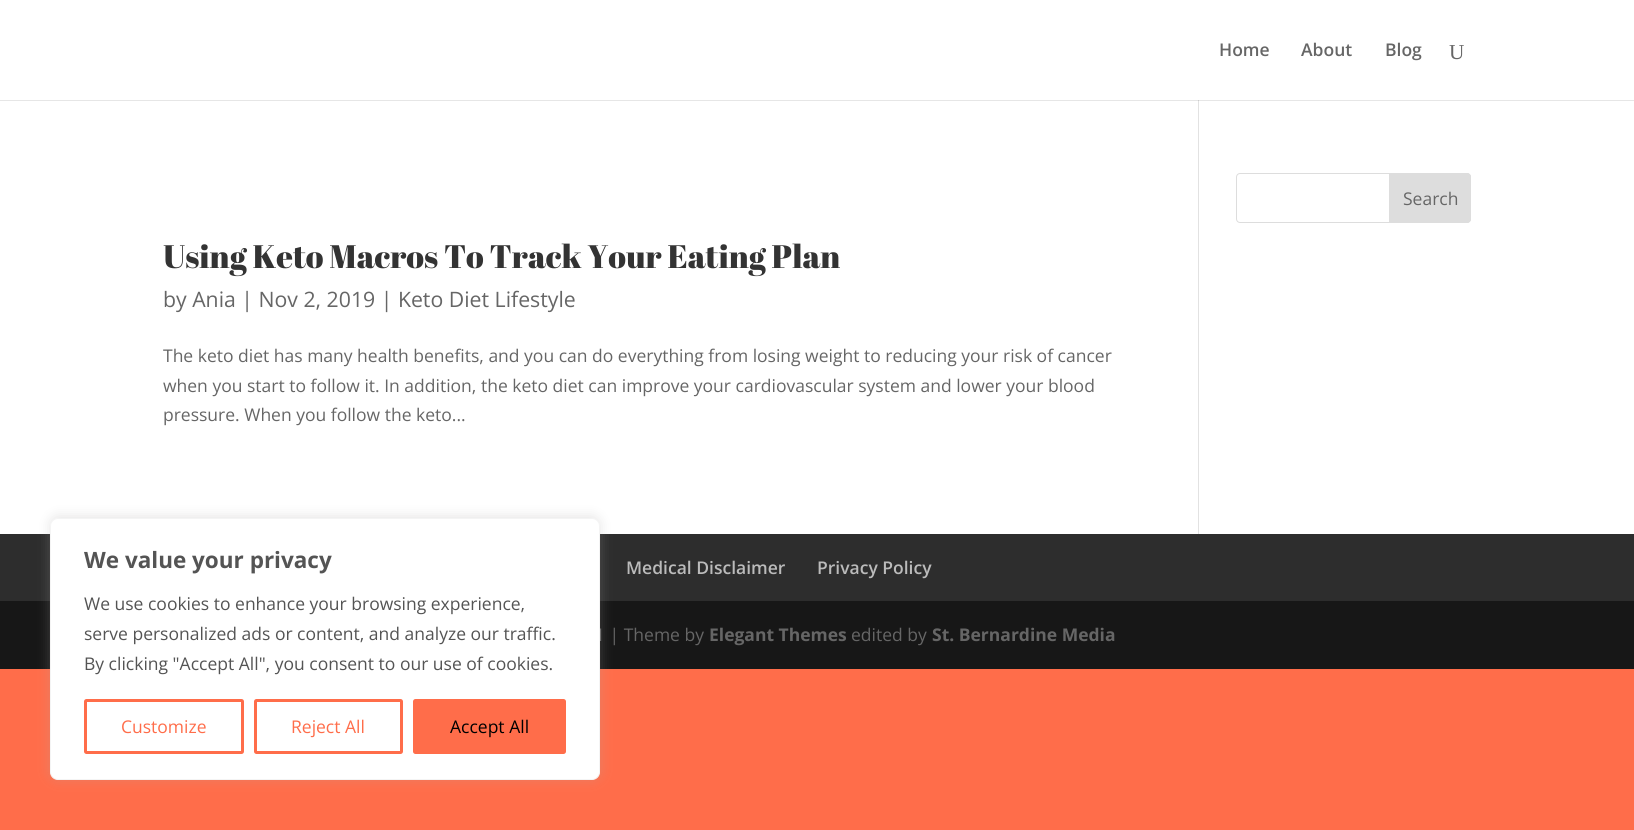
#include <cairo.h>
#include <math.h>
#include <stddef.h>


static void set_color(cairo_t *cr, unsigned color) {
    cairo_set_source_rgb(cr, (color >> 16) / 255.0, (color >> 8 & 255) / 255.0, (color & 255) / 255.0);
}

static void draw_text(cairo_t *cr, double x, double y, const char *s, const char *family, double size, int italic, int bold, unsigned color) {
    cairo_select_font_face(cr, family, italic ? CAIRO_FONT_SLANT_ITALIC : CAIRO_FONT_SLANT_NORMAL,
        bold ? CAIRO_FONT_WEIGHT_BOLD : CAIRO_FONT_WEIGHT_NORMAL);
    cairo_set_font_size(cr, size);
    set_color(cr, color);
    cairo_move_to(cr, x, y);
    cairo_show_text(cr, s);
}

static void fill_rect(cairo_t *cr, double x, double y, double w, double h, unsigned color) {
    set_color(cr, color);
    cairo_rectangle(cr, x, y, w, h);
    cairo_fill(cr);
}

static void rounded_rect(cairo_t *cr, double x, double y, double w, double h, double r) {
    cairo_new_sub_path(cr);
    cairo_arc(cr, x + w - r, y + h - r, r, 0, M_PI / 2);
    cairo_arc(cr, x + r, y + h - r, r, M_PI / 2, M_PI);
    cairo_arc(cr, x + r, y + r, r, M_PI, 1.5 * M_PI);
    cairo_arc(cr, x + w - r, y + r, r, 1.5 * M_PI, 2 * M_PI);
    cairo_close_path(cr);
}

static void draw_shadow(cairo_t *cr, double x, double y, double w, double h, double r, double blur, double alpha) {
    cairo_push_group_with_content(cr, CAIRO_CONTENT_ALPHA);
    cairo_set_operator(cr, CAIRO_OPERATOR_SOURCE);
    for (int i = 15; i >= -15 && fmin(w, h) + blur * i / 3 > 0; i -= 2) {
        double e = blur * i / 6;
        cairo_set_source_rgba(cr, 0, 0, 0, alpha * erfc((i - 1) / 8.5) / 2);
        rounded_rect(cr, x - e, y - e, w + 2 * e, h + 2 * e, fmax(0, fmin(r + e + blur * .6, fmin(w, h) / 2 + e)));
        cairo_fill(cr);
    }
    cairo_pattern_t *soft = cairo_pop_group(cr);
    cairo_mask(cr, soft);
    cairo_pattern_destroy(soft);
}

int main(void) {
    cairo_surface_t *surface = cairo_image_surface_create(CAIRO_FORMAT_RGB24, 1634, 830);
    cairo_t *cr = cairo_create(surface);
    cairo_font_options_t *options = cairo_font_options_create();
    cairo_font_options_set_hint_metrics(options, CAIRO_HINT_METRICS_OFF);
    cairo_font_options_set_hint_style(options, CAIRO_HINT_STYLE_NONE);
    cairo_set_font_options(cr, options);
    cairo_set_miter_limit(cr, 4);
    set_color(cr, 0xFF6D4A);
    cairo_paint(cr);
    fill_rect(cr, 0, 0, 1634, 100, 0xFFFFFF);
    draw_text(cr, 1219, 56, "Home", "Open Sans SemiBold", 17.5, 0, 0, 0x666666);
    draw_text(cr, 1301, 56, "About", "Open Sans SemiBold", 17.5, 0, 0, 0x666666);
    draw_text(cr, 1385, 56, "Blog", "Open Sans SemiBold", 17.5, 0, 0, 0x666666);
    draw_text(cr, 1449, 59, "U", "Liberation Serif", 21.25, 0, 0, 0x666666);
    fill_rect(cr, 0, 101, 1634, 433, 0xFFFFFF);
    fill_rect(cr, 0, 100, 1634, 1, 0xE6E6E6);
    fill_rect(cr, 1198, 100, 1, 434, 0xE2E2E2);
    fill_rect(cr, 1198, 100, 1, 1, 0xCBCBCB);
    rounded_rect(cr, 1236.5, 173.5, 234, 49, 3.5);
    set_color(cr, 0xDDDDDD);
    cairo_set_line_width(cr, 1);
    cairo_stroke(cr);
    cairo_new_path(cr);
    cairo_move_to(cr, 1389.5, 173.5);
    cairo_line_to(cr, 1467, 173.5);
    cairo_curve_to(cr, 1469, 173.5, 1470.5, 175, 1470.5, 177);
    cairo_line_to(cr, 1470.5, 219);
    cairo_curve_to(cr, 1470.5, 221, 1469, 222.5, 1467, 222.5);
    cairo_line_to(cr, 1389.5, 222.5);
    cairo_close_path(cr);
    cairo_fill_preserve(cr);
    cairo_stroke(cr);
    draw_text(cr, 1403, 205, "Search", "Open Sans", 17.5, 0, 0, 0x666666);
    draw_text(cr, 163, 268, "Using Keto Macros To Track Your Eating Plan", "Abril Fatface", 32.5, 0, 0, 0x333333);
    draw_text(cr, 163, 307, "by Ania | Nov 2, 2019 | Keto Diet Lifestyle", "Open Sans", 21.25, 0, 0, 0x666666);
    draw_text(cr, 163, 362, "The keto diet has many health benefits, and you can do everything from losing weight to reducing your risk of cancer", "Open Sans", 17.5, 0, 0, 0x666666);
    draw_text(cr, 163, 392, "when you start to follow it. In addition, the keto diet can improve your cardiovascular system and lower your blood", "Open Sans", 17.5, 0, 0, 0x666666);
    draw_text(cr, 163, 421, "pressure. When you follow the keto...", "Open Sans", 17.5, 0, 0, 0x666666);
    fill_rect(cr, 0, 534, 1634, 67, 0x2D2D2D);
    draw_text(cr, 626, 574, "Medical Disclaimer", "Open Sans SemiBold", 17.5, 0, 0, 0xBBBBBB);
    draw_text(cr, 817, 574, "Privacy Policy", "Open Sans SemiBold", 17.5, 0, 0, 0xBBBBBB);
    fill_rect(cr, 0, 601, 1634, 68, 0x171717);
    draw_text(cr, 595, 641, "1 | Theme by", "Open Sans", 17.5, 0, 0, 0x666666);
    draw_text(cr, 709, 641, "Elegant Themes", "Open Sans", 17.5, 0, 1, 0x666666);
    draw_text(cr, 851, 641, "edited by", "Open Sans", 17.5, 0, 0, 0x666666);
    draw_text(cr, 932, 641, "St. Bernardine Media", "Open Sans", 17.5, 0, 1, 0x666666);
    set_color(cr, 0xACABAB);
    draw_shadow(cr, 50, 516, 550, 263, 8, 6, 0.3);
    set_color(cr, 0xFFFFFF);
    rounded_rect(cr, 50.5, 518.5, 549, 261, 7.5);
    cairo_fill_preserve(cr);
    set_color(cr, 0xF4F4F4);
    cairo_stroke(cr);
    draw_text(cr, 84, 568, "We value your privacy", "Open Sans", 22.5, 0, 1, 0x545454);
    draw_text(cr, 84, 610, "We use cookies to enhance your browsing experience,", "Open Sans", 17.5, 0, 0, 0x545454);
    draw_text(cr, 84, 640, "serve personalized ads or content, and analyze our traffic.", "Open Sans", 17.5, 0, 0, 0x545454);
    draw_text(cr, 84, 670, "By clicking \"Accept All\", you consent to our use of cookies.", "Open Sans", 17.5, 0, 0, 0x545454);
    rounded_rect(cr, 85.5, 700.5, 157, 52, 1);
    set_color(cr, 0xFF6D4A);
    cairo_set_line_width(cr, 3);
    cairo_stroke(cr);
    draw_text(cr, 121, 733, "Customize", "Open Sans", 17.5, 0, 0, 0xFF6D4A);
    rounded_rect(cr, 255.5, 700.5, 146, 52, 1);
    cairo_stroke(cr);
    draw_text(cr, 291, 733, "Reject All", "Open Sans", 17.5, 0, 0, 0xFF6D4A);
    rounded_rect(cr, 414.5, 700.5, 150, 52, 1);
    cairo_fill_preserve(cr);
    cairo_stroke(cr);
    draw_text(cr, 450, 733, "Accept All", "Open Sans", 17.5, 0, 0, 0x000000);
    cairo_surface_write_to_png(surface, "output.png");
    cairo_font_options_destroy(options);
    cairo_destroy(cr);
    cairo_surface_destroy(surface);
    return 0;
}
